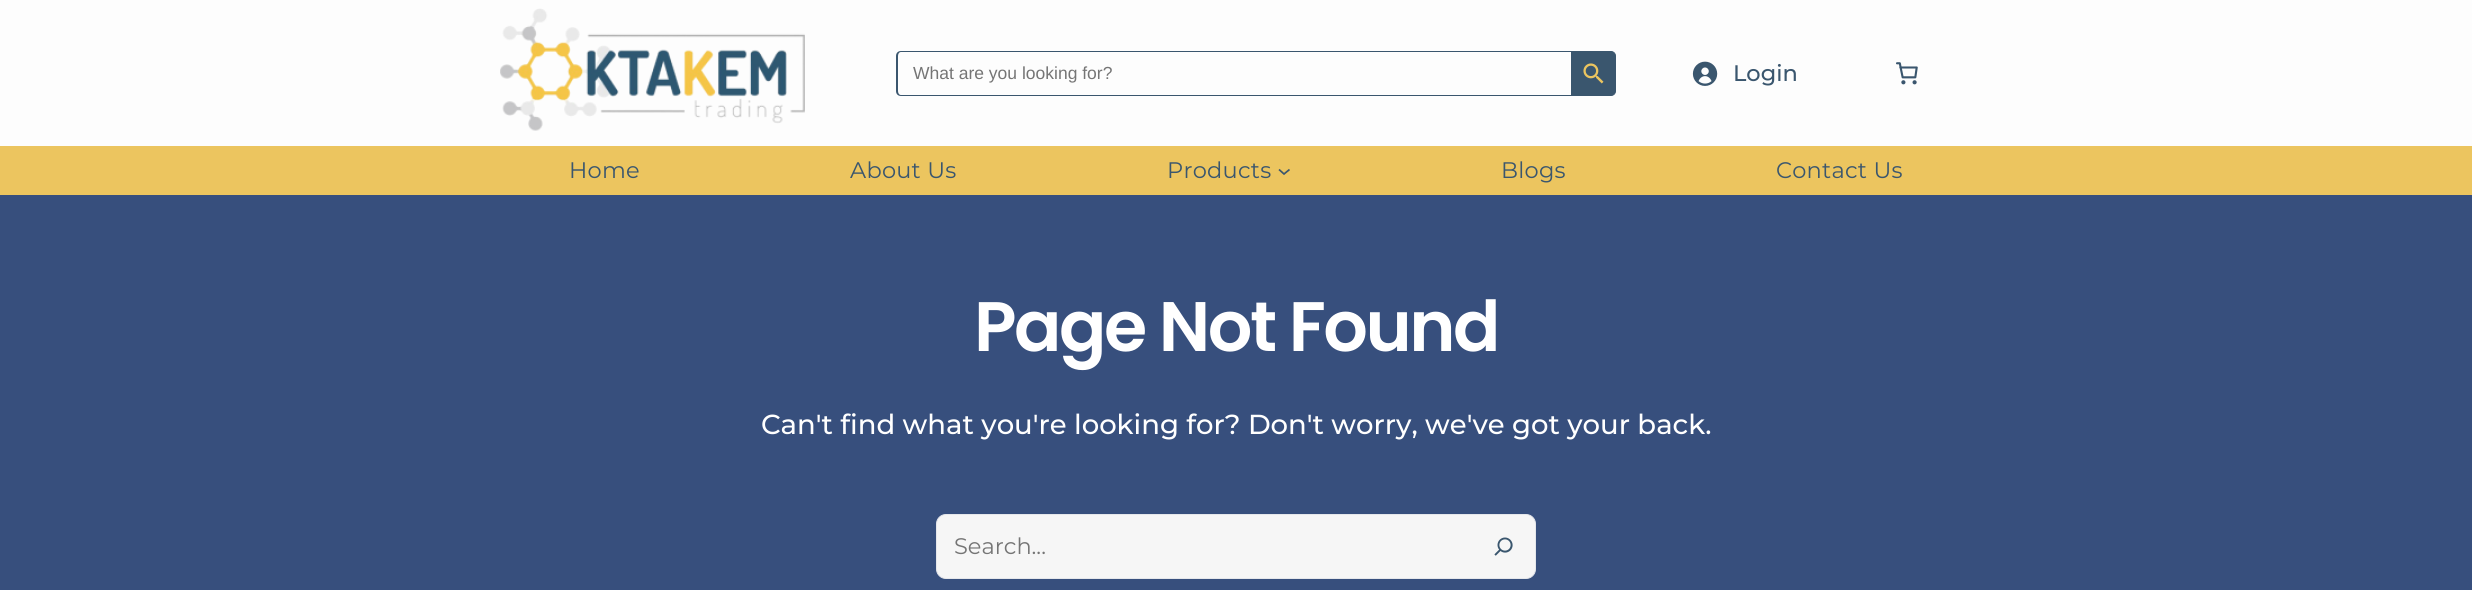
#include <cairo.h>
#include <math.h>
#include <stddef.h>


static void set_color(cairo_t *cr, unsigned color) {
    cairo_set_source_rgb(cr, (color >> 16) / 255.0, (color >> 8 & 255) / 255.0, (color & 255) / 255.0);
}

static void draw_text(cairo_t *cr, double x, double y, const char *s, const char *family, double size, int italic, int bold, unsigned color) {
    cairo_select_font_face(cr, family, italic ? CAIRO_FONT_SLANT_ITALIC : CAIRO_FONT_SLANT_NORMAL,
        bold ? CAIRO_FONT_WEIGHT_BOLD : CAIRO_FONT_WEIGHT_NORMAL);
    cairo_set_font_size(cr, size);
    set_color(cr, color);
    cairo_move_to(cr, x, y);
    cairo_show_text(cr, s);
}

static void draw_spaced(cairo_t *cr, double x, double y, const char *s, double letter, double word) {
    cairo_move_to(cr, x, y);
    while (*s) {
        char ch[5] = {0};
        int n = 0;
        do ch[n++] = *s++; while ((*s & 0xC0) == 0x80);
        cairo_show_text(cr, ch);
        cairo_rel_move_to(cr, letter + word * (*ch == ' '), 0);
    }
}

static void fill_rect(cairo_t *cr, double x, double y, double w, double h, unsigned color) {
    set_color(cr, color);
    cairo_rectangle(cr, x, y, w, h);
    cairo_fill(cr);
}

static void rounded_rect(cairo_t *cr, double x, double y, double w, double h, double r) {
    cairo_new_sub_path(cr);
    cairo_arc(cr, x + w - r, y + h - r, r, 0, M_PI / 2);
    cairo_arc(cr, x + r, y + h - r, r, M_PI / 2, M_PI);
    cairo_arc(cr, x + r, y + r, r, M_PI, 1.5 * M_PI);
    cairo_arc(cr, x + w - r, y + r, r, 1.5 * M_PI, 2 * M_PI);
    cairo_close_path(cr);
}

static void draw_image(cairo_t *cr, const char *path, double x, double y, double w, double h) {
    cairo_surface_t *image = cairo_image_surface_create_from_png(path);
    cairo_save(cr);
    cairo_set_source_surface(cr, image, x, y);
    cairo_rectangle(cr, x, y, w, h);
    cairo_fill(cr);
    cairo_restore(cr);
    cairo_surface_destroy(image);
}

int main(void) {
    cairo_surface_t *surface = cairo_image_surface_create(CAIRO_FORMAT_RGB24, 2472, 590);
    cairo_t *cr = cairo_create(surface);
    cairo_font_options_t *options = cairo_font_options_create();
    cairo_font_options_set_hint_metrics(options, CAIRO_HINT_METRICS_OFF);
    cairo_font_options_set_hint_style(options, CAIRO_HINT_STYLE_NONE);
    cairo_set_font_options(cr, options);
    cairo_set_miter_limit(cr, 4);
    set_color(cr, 0xFDFDFD);
    cairo_paint(cr);
    draw_image(cr, "assets/img1.png", 500, 8, 305, 123);
    set_color(cr, 0x3A566E);
    cairo_set_fill_rule(cr, CAIRO_FILL_RULE_EVEN_ODD);
    cairo_new_path(cr);
    cairo_move_to(cr, 901, 51);
    cairo_line_to(cr, 1571, 51);
    cairo_line_to(cr, 1571, 96);
    cairo_line_to(cr, 901, 96);
    cairo_curve_to(cr, 898, 96, 896, 94, 896, 91);
    cairo_line_to(cr, 896, 56);
    cairo_curve_to(cr, 896, 53, 898, 51, 901, 51);
    cairo_close_path(cr);
    cairo_move_to(cr, 901, 52);
    cairo_line_to(cr, 1571, 52);
    cairo_line_to(cr, 1571, 95);
    cairo_line_to(cr, 901, 95);
    cairo_curve_to(cr, 899, 95, 898, 93, 898, 91);
    cairo_line_to(cr, 898, 56);
    cairo_curve_to(cr, 898, 54, 899, 52, 901, 52);
    cairo_close_path(cr);
    cairo_fill(cr);
    draw_text(cr, 913, 79, "What are you looking for?", "Liberation Sans", 17.5, 0, 0, 0x757575);
    set_color(cr, 0x3A566E);
    cairo_new_path(cr);
    cairo_move_to(cr, 1571.5, 51.5);
    cairo_line_to(cr, 1611, 51.5);
    cairo_curve_to(cr, 1613.5, 51.5, 1615.5, 53.5, 1615.5, 56);
    cairo_line_to(cr, 1615.5, 91);
    cairo_curve_to(cr, 1615.5, 93.5, 1613.5, 95.5, 1611, 95.5);
    cairo_line_to(cr, 1571.5, 95.5);
    cairo_close_path(cr);
    cairo_fill_preserve(cr);
    cairo_set_line_width(cr, 1);
    cairo_stroke(cr);
    draw_image(cr, "assets/img2.png", 1583, 63, 21, 21);
    draw_image(cr, "assets/img3.png", 1692, 61, 26, 25);
    draw_text(cr, 1733, 81, "Login", "Montserrat Medium", 22.5, 0, 0, 0x3A566E);
    draw_image(cr, "assets/img4.png", 1896, 62, 22, 23);
    fill_rect(cr, 0, 146, 2472, 49, 0xECC55F);
    cairo_select_font_face(cr, "Montserrat", CAIRO_FONT_SLANT_NORMAL, CAIRO_FONT_WEIGHT_NORMAL);
    set_color(cr, 0x3A566E);
    draw_spaced(cr, 569, 178, "Home", 0.25, 0);
    draw_spaced(cr, 850, 178, "About Us", 0.25, 0);
    draw_spaced(cr, 1167, 178, "Products", 0.25, 0);
    cairo_new_path(cr);
    cairo_move_to(cr, 1279, 169.5);
    cairo_line_to(cr, 1284, 174);
    cairo_line_to(cr, 1289.5, 169.5);
    cairo_set_line_width(cr, 1.7);
    cairo_stroke(cr);
    draw_spaced(cr, 1501, 178, "Blogs", 0.25, 0);
    draw_spaced(cr, 1776, 178, "Contact Us", 0.25, 0);
    fill_rect(cr, 0, 195, 2472, 395, 0x374F7D);
    cairo_select_font_face(cr, "Poppins SemiBold", CAIRO_FONT_SLANT_NORMAL, CAIRO_FONT_WEIGHT_NORMAL);
    cairo_set_font_size(cr, 70);
    set_color(cr, 0xFFFFFF);
    draw_spaced(cr, 974, 351, "Page Not Found", -2.5, 0);
    draw_text(cr, 761, 434, "Can't find what you're looking for? Don't worry, we've got your back.", "Montserrat Medium", 27.5, 0, 0, 0xFFFFFF);
    set_color(cr, 0xF6F6F6);
    rounded_rect(cr, 936.5, 514.5, 599, 64, 9.5);
    cairo_fill_preserve(cr);
    set_color(cr, 0xE5E7EB);
    cairo_set_line_width(cr, 1);
    cairo_stroke(cr);
    draw_text(cr, 954, 554, "Search...", "Montserrat", 22.5, 0, 0, 0x757575);
    draw_image(cr, "assets/img5.png", 1494, 537, 19, 19);
    cairo_surface_write_to_png(surface, "output.png");
    cairo_font_options_destroy(options);
    cairo_destroy(cr);
    cairo_surface_destroy(surface);
    return 0;
}
